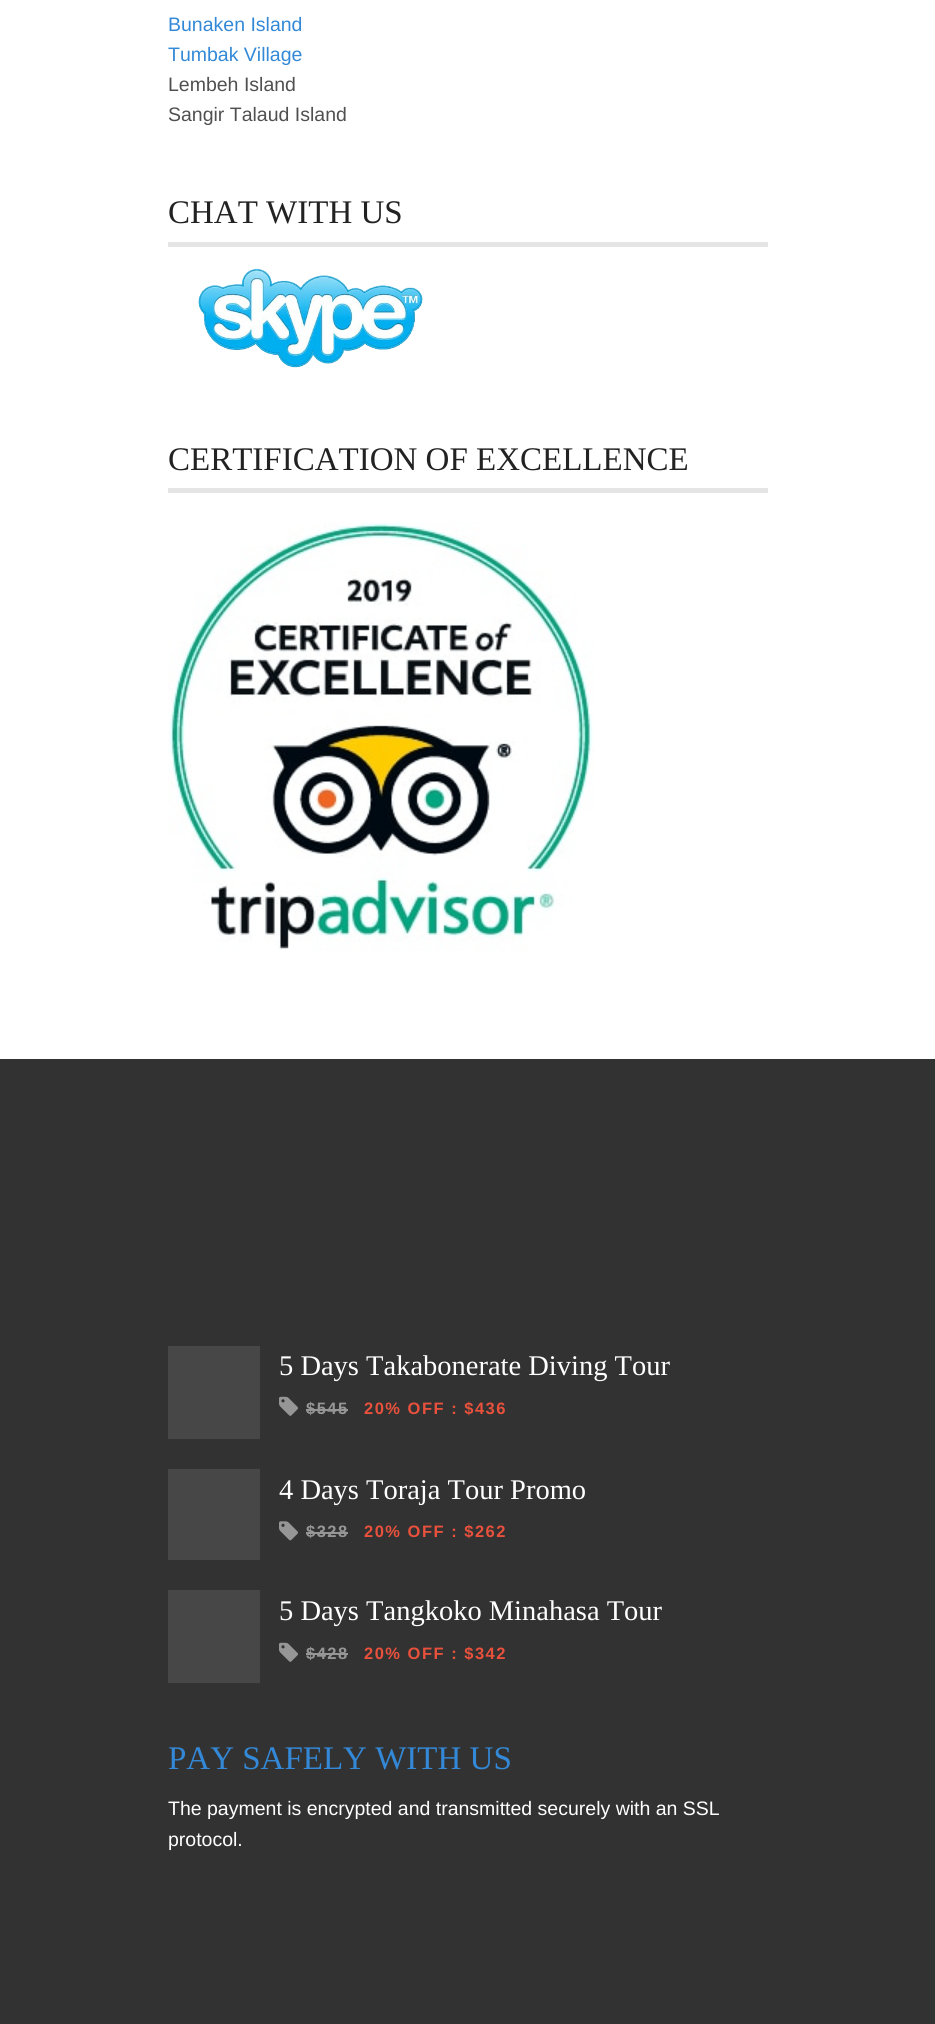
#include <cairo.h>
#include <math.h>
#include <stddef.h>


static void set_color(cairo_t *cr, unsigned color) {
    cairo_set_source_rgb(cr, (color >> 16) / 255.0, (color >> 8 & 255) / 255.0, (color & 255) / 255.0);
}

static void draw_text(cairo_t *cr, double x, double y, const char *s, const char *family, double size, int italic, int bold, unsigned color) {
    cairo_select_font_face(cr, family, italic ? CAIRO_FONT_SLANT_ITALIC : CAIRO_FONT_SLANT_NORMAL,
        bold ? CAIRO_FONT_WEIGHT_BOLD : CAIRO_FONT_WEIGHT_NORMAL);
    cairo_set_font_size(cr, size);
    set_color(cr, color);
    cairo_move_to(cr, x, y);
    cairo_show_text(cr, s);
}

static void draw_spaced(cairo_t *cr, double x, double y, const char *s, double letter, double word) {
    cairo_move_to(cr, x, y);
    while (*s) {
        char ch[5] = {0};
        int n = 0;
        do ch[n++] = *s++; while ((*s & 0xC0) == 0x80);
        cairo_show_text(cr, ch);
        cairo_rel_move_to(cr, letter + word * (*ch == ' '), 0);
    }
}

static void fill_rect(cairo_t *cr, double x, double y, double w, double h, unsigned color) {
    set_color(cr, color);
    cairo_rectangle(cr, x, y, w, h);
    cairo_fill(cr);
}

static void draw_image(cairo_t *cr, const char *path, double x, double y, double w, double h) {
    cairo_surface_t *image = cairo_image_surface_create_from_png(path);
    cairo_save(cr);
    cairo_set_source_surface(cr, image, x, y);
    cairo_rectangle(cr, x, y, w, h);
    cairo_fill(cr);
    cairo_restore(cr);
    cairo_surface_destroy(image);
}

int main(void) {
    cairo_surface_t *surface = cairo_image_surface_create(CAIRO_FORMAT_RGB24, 935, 2024);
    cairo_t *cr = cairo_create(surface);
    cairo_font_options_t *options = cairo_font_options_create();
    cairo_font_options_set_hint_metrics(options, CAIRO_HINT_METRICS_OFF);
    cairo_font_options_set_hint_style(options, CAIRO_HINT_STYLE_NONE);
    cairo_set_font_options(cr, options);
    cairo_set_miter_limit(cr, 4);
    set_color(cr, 0xFFFFFF);
    cairo_paint(cr);
    draw_text(cr, 168, 31, "Bunaken Island", "Liberation Sans", 19.5, 0, 0, 0x3389D7);
    draw_text(cr, 168, 61, "Tumbak Village", "Liberation Sans", 19.5, 0, 0, 0x3389D7);
    draw_text(cr, 168, 91, "Lembeh Island", "Liberation Sans", 19.5, 0, 0, 0x505050);
    draw_text(cr, 168, 121, "Sangir Talaud Island", "Liberation Sans", 19.5, 0, 0, 0x505050);
    fill_rect(cr, 168, 242, 600, 5, 0xE5E5E5);
    draw_text(cr, 168, 223, "CHAT WITH US", "Liberation Serif", 33, 0, 0, 0x222222);
    draw_image(cr, "assets/img1.png", 198, 268, 225, 100);
    fill_rect(cr, 168, 488, 600, 5, 0xE5E5E5);
    draw_text(cr, 168, 470, "CERTIFICATION OF EXCELLENCE", "Liberation Serif", 33, 0, 0, 0x222222);
    draw_image(cr, "assets/img2.png", 168, 522, 426, 429);
    fill_rect(cr, 0, 1059, 935, 965, 0x323232);
    fill_rect(cr, 168, 1346, 92, 93, 0x474747);
    draw_text(cr, 279, 1375, "5 Days Takabonerate Diving Tour", "Liberation Serif", 28.5, 0, 0, 0xFFFFFF);
    draw_image(cr, "assets/img3.png", 279, 1396, 19, 20);
    cairo_select_font_face(cr, "Liberation Sans", CAIRO_FONT_SLANT_NORMAL, CAIRO_FONT_WEIGHT_BOLD);
    cairo_set_font_size(cr, 16.5);
    set_color(cr, 0x969696);
    draw_spaced(cr, 306, 1414, "$545", 1.5, 0);
    fill_rect(cr, 306, 1409, 42, 2, 0x969696);
    set_color(cr, 0xE9513C);
    draw_spaced(cr, 364, 1414, "20% OFF : $436", 1.5, 0);
    fill_rect(cr, 168, 1469, 92, 91, 0x474747);
    draw_text(cr, 279, 1499, "4 Days Toraja Tour Promo", "Liberation Serif", 28.5, 0, 0, 0xFFFFFF);
    draw_image(cr, "assets/img4.png", 279, 1521, 19, 20);
    cairo_select_font_face(cr, "Liberation Sans", CAIRO_FONT_SLANT_NORMAL, CAIRO_FONT_WEIGHT_BOLD);
    cairo_set_font_size(cr, 16.5);
    set_color(cr, 0x969696);
    draw_spaced(cr, 306, 1537, "$328", 1.5, 0);
    fill_rect(cr, 306, 1532, 42, 2, 0x969696);
    set_color(cr, 0xE9513C);
    draw_spaced(cr, 364, 1537, "20% OFF : $262", 1.5, 0);
    fill_rect(cr, 168, 1590, 92, 93, 0x474747);
    draw_text(cr, 279, 1620, "5 Days Tangkoko Minahasa Tour", "Liberation Serif", 28.5, 0, 0, 0xFFFFFF);
    draw_image(cr, "assets/img3.png", 279, 1642, 19, 20);
    cairo_select_font_face(cr, "Liberation Sans", CAIRO_FONT_SLANT_NORMAL, CAIRO_FONT_WEIGHT_BOLD);
    cairo_set_font_size(cr, 16.5);
    set_color(cr, 0x969696);
    draw_spaced(cr, 306, 1659, "$428", 1.5, 0);
    fill_rect(cr, 306, 1653, 42, 2, 0x969696);
    set_color(cr, 0xE9513C);
    draw_spaced(cr, 364, 1659, "20% OFF : $342", 1.5, 0);
    draw_text(cr, 168, 1769, "PAY SAFELY WITH US", "Liberation Serif", 33, 0, 0, 0x3389D7);
    draw_text(cr, 168, 1815, "The payment is encrypted and transmitted securely with an SSL", "Liberation Sans", 19.5, 0, 0, 0xFFFFFF);
    draw_text(cr, 168, 1846, "protocol.", "Liberation Sans", 19.5, 0, 0, 0xFFFFFF);
    cairo_surface_write_to_png(surface, "output.png");
    cairo_font_options_destroy(options);
    cairo_destroy(cr);
    cairo_surface_destroy(surface);
    return 0;
}
